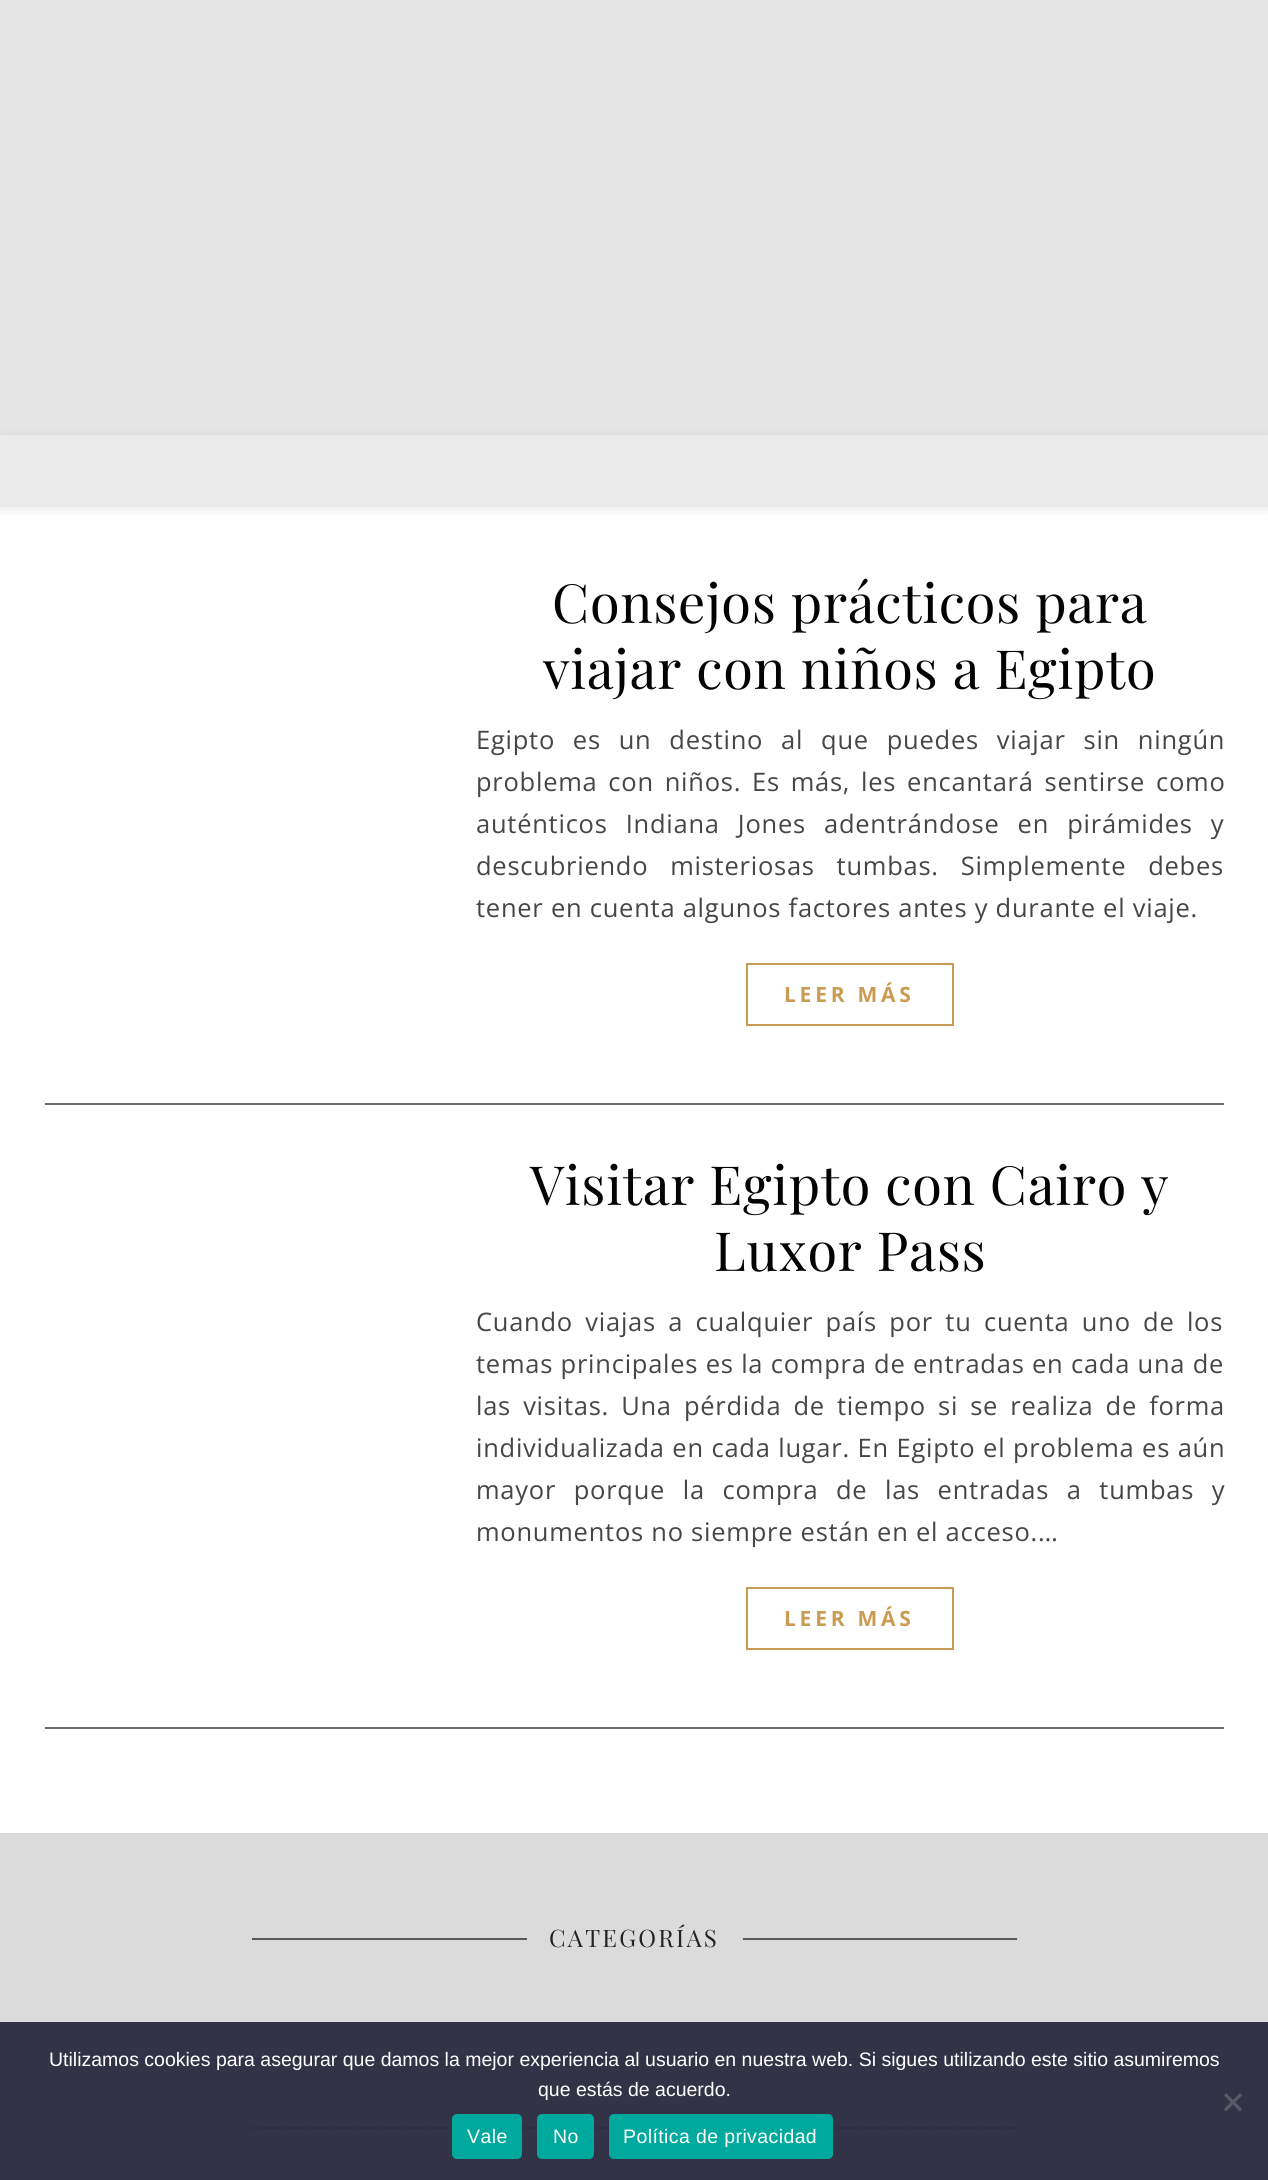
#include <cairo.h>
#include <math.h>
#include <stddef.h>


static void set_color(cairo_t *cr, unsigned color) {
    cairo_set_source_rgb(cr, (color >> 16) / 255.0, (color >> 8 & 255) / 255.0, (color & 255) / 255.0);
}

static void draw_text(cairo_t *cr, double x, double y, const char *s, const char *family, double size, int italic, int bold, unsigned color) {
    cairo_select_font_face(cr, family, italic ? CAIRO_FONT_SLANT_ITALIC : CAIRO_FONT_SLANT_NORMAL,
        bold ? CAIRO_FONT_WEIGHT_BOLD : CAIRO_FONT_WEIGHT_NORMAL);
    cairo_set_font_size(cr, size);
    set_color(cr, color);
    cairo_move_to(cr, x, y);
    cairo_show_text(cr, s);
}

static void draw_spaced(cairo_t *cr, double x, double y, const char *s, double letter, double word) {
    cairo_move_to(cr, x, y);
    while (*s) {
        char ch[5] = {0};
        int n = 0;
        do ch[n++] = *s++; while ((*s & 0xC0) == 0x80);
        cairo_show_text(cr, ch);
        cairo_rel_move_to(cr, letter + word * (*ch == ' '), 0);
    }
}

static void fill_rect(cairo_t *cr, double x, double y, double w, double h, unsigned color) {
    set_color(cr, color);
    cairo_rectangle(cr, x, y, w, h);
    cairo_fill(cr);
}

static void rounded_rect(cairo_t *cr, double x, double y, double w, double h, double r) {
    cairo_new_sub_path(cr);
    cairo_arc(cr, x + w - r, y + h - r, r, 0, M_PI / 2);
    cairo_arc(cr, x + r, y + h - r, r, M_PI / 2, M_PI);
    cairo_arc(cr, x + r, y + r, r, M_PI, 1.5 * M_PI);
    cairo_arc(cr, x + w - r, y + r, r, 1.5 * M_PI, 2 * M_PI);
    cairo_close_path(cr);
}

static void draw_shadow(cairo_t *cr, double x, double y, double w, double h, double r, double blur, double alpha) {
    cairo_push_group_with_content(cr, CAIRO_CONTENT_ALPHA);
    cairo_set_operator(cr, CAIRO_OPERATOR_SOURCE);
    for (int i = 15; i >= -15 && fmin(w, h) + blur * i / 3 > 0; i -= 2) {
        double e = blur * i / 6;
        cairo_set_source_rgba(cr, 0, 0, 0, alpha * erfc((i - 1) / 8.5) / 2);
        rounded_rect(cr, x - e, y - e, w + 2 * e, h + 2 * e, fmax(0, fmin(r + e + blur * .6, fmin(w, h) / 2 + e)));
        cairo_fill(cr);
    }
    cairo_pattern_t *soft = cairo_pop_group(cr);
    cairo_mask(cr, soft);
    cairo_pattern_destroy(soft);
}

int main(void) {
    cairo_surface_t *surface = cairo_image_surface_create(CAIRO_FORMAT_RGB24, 1268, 2180);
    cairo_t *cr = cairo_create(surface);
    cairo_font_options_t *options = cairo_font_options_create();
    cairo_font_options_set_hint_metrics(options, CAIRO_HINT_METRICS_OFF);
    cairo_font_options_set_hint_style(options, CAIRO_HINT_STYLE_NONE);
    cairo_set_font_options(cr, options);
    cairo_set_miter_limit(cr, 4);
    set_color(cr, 0xE5E5E5);
    cairo_paint(cr);
    fill_rect(cr, 0, 507, 1268, 1326, 0xFFFFFF);
    set_color(cr, 0x0A0A0A);
    draw_shadow(cr, 0, 437, 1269, 72, 0, 4, 0.1);
    fill_rect(cr, 0, 435, 1268, 72, 0xEAEAEA);
    fill_rect(cr, 45, 1103, 1179, 2, 0x6D6D6D);
    cairo_select_font_face(cr, "Playfair Display", CAIRO_FONT_SLANT_NORMAL, CAIRO_FONT_WEIGHT_NORMAL);
    cairo_set_font_size(cr, 54);
    set_color(cr, 0x030303);
    draw_spaced(cr, 552, 623, "Consejos prácticos para", 0.75, 0);
    draw_spaced(cr, 543, 689, "viajar con niños a Egipto", 0.75, 0);
    cairo_select_font_face(cr, "Open Sans", CAIRO_FONT_SLANT_NORMAL, CAIRO_FONT_WEIGHT_NORMAL);
    cairo_set_font_size(cr, 25.5);
    set_color(cr, 0x464646);
    draw_spaced(cr, 476, 749, "Egipto es un destino al que puedes viajar sin ningún", 0.75, 10.5);
    draw_spaced(cr, 476, 791, "problema con niños. Es más, les encantará sentirse como", 0.75, 3.5);
    draw_spaced(cr, 476, 833, "auténticos Indiana Jones adentrándose en pirámides y", 0.75, 10.75);
    draw_spaced(cr, 476, 875, "descubriendo misteriosas tumbas. Simplemente debes", 0.75, 14.5);
    draw_spaced(cr, 476, 917, "tener en cuenta algunos factores antes y durante el viaje.", 0.75, 0);
    cairo_rectangle(cr, 747, 964, 206, 61);
    set_color(cr, 0xCA9B52);
    cairo_stroke(cr);
    cairo_select_font_face(cr, "Open Sans", CAIRO_FONT_SLANT_NORMAL, CAIRO_FONT_WEIGHT_BOLD);
    cairo_set_font_size(cr, 21);
    draw_spaced(cr, 784, 1002, "LEER MÁS", 3.75, 0);
    fill_rect(cr, 45, 1727, 1179, 2, 0x6D6D6D);
    cairo_select_font_face(cr, "Playfair Display", CAIRO_FONT_SLANT_NORMAL, CAIRO_FONT_WEIGHT_NORMAL);
    cairo_set_font_size(cr, 54);
    set_color(cr, 0x030303);
    draw_spaced(cr, 530, 1205, "Visitar Egipto con Cairo y", 0.75, 0);
    draw_spaced(cr, 714, 1271, "Luxor Pass", 0.75, 0);
    cairo_select_font_face(cr, "Open Sans", CAIRO_FONT_SLANT_NORMAL, CAIRO_FONT_WEIGHT_NORMAL);
    cairo_set_font_size(cr, 25.5);
    set_color(cr, 0x464646);
    draw_spaced(cr, 476, 1331, "Cuando viajas a cualquier país por tu cuenta uno de los", 0.75, 5);
    draw_spaced(cr, 476, 1373, "temas principales es la compra de entradas en cada una de", 0.75, 0.1);
    draw_spaced(cr, 476, 1415, "las visitas. Una pérdida de tiempo si se realiza de forma", 0.75, 4.75);
    draw_spaced(cr, 476, 1457, "individualizada en cada lugar. En Egipto el problema es aún", 0.75, 0.25);
    draw_spaced(cr, 476, 1499, "mayor porque la compra de las entradas a tumbas y", 0.75, 10.25);
    draw_spaced(cr, 476, 1541, "monumentos no siempre están en el acceso.…", 0.75, 0);
    cairo_rectangle(cr, 747, 1588, 206, 61);
    set_color(cr, 0xCA9B52);
    cairo_stroke(cr);
    cairo_select_font_face(cr, "Open Sans", CAIRO_FONT_SLANT_NORMAL, CAIRO_FONT_WEIGHT_BOLD);
    cairo_set_font_size(cr, 21);
    draw_spaced(cr, 784, 1626, "LEER MÁS", 3.75, 0);
    fill_rect(cr, 0, 1833, 1268, 347, 0xDBDBDB);
    fill_rect(cr, 252, 1938, 275, 2, 0x595959);
    cairo_select_font_face(cr, "Playfair Display", CAIRO_FONT_SLANT_NORMAL, CAIRO_FONT_WEIGHT_NORMAL);
    cairo_set_font_size(cr, 24);
    set_color(cr, 0x232323);
    draw_spaced(cr, 549, 1947, "CATEGORÍAS", 2.25, 0);
    fill_rect(cr, 743, 1938, 274, 2, 0x595959);
    cairo_new_path(cr);
    cairo_move_to(cr, 252, 2059);
    cairo_line_to(cr, 1017, 2059);
    cairo_set_line_width(cr, 1.5);
    cairo_set_dash(cr, (double[]){1.5, 1.5}, 2, 0);
    cairo_stroke(cr);
    cairo_new_path(cr);
    cairo_move_to(cr, 252, 2128);
    cairo_line_to(cr, 1017, 2128);
    cairo_stroke(cr);
    cairo_set_source_rgba(cr, 0.137, 0.137, 0.227, 0.91);
    cairo_rectangle(cr, 0, 2022, 1268, 158);
    cairo_fill(cr);
    draw_text(cr, 49, 2066, "Utilizamos cookies para asegurar que damos la mejor experiencia al usuario en nuestra web. Si sigues utilizando este sitio asumiremos", "Liberation Sans", 19.5, 0, 0, 0xFFFFFF);
    draw_text(cr, 538, 2096, "que estás de acuerdo.", "Liberation Sans", 19.5, 0, 0, 0xFFFFFF);
    set_color(cr, 0x5A5A64);
    cairo_new_path(cr);
    cairo_move_to(cr, 1240, 2093);
    cairo_line_to(cr, 1242, 2095.5);
    cairo_line_to(cr, 1226, 2111.5);
    cairo_line_to(cr, 1224, 2109);
    cairo_close_path(cr);
    cairo_fill(cr);
    cairo_new_path(cr);
    cairo_move_to(cr, 1224, 2095.5);
    cairo_line_to(cr, 1226, 2093);
    cairo_line_to(cr, 1242, 2109);
    cairo_line_to(cr, 1240, 2111.5);
    cairo_close_path(cr);
    cairo_fill(cr);
    set_color(cr, 0x00A99D);
    rounded_rect(cr, 452, 2114, 70, 45, 5);
    cairo_fill(cr);
    set_color(cr, 0xFFFFFF);
    draw_spaced(cr, 467, 2143, "Vale", 0.4, 0);
    set_color(cr, 0x00A99D);
    rounded_rect(cr, 537, 2114, 57, 45, 5);
    cairo_fill(cr);
    set_color(cr, 0xFFFFFF);
    draw_spaced(cr, 553, 2143, "No", 0.4, 0);
    set_color(cr, 0x00A99D);
    rounded_rect(cr, 609, 2114, 224, 45, 5);
    cairo_fill(cr);
    set_color(cr, 0xFFFFFF);
    draw_spaced(cr, 623, 2143, "Política de privacidad", 0.4, 0);
    cairo_surface_write_to_png(surface, "output.png");
    cairo_font_options_destroy(options);
    cairo_destroy(cr);
    cairo_surface_destroy(surface);
    return 0;
}
